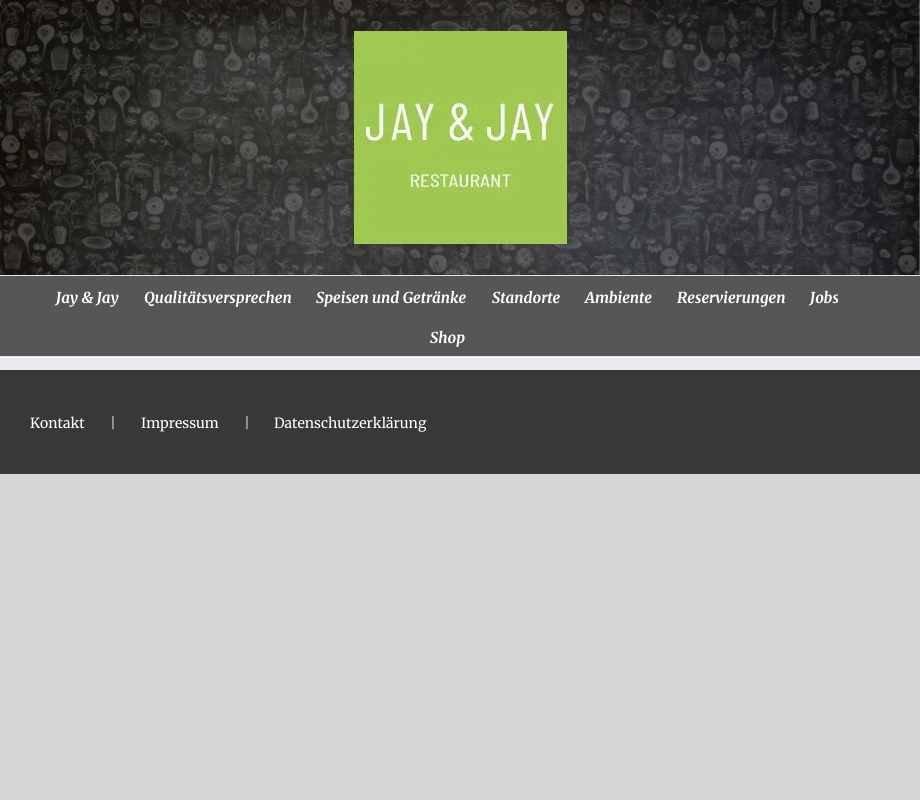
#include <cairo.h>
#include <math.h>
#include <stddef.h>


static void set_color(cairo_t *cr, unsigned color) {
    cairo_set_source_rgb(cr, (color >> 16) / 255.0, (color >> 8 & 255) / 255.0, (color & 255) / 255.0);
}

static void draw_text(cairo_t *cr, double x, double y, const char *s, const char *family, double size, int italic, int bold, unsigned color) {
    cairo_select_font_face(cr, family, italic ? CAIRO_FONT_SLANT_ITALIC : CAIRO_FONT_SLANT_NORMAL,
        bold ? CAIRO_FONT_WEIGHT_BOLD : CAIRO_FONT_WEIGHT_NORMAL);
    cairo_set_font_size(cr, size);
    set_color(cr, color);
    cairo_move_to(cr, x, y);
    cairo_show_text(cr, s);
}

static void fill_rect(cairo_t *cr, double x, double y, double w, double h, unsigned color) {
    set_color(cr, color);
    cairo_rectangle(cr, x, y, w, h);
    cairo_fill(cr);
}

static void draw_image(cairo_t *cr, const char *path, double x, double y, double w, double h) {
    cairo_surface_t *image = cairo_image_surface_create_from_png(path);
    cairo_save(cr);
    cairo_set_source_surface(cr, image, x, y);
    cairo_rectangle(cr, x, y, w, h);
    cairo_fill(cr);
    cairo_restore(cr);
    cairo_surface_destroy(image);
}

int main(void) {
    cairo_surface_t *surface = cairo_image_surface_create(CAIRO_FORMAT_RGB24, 920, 800);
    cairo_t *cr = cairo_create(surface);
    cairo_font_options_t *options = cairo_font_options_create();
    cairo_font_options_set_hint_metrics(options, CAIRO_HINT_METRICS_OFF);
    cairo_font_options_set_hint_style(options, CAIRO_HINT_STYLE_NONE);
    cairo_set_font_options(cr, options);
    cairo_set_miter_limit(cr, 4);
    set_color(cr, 0xD7D6D6);
    cairo_paint(cr);
    fill_rect(cr, 0, 0, 920, 358, 0xFFFFFF);
    draw_image(cr, "assets/img1.png", 0, 0, 920, 275);
    fill_rect(cr, 0, 275, 920, 1, 0xE5E5E5);
    draw_image(cr, "assets/img2.png", 354, 31, 213, 213);
    fill_rect(cr, 0, 276, 920, 80, 0x565656);
    fill_rect(cr, 0, 356, 920, 1, 0xE5E5E5);
    draw_text(cr, 56, 303, "Jay & Jay", "Merriweather", 15, 1, 1, 0xFFFFFF);
    draw_text(cr, 144, 303, "Qualitätsversprechen", "Merriweather", 15, 1, 1, 0xFFFFFF);
    draw_text(cr, 316, 303, "Speisen und Getränke", "Merriweather", 15, 1, 1, 0xFFFFFF);
    draw_text(cr, 492, 303, "Standorte", "Merriweather", 15, 1, 1, 0xFFFFFF);
    draw_text(cr, 585, 303, "Ambiente", "Merriweather", 15, 1, 1, 0xFFFFFF);
    draw_text(cr, 677, 303, "Reservierungen", "Merriweather", 15, 1, 1, 0xFFFFFF);
    draw_text(cr, 810, 303, "Jobs", "Merriweather", 15, 1, 1, 0xFFFFFF);
    draw_text(cr, 430, 343, "Shop", "Merriweather", 15, 1, 1, 0xFFFFFF);
    fill_rect(cr, 0, 370, 920, 104, 0x363839);
    fill_rect(cr, 0, 358, 920, 12, 0xE9EAEE);
    draw_text(cr, 30, 428, "Kontakt", "Merriweather", 14, 0, 0, 0xFFFFFF);
    draw_text(cr, 110, 428, "|", "Merriweather", 14, 0, 0, 0xCCCCCC);
    draw_text(cr, 141, 428, "Impressum", "Merriweather", 14, 0, 0, 0xFFFFFF);
    draw_text(cr, 244, 428, "|", "Merriweather", 14, 0, 0, 0xCCCCCC);
    draw_text(cr, 274, 428, "Datenschutzerklärung", "Merriweather", 14, 0, 0, 0xFFFFFF);
    cairo_surface_write_to_png(surface, "output.png");
    cairo_font_options_destroy(options);
    cairo_destroy(cr);
    cairo_surface_destroy(surface);
    return 0;
}
